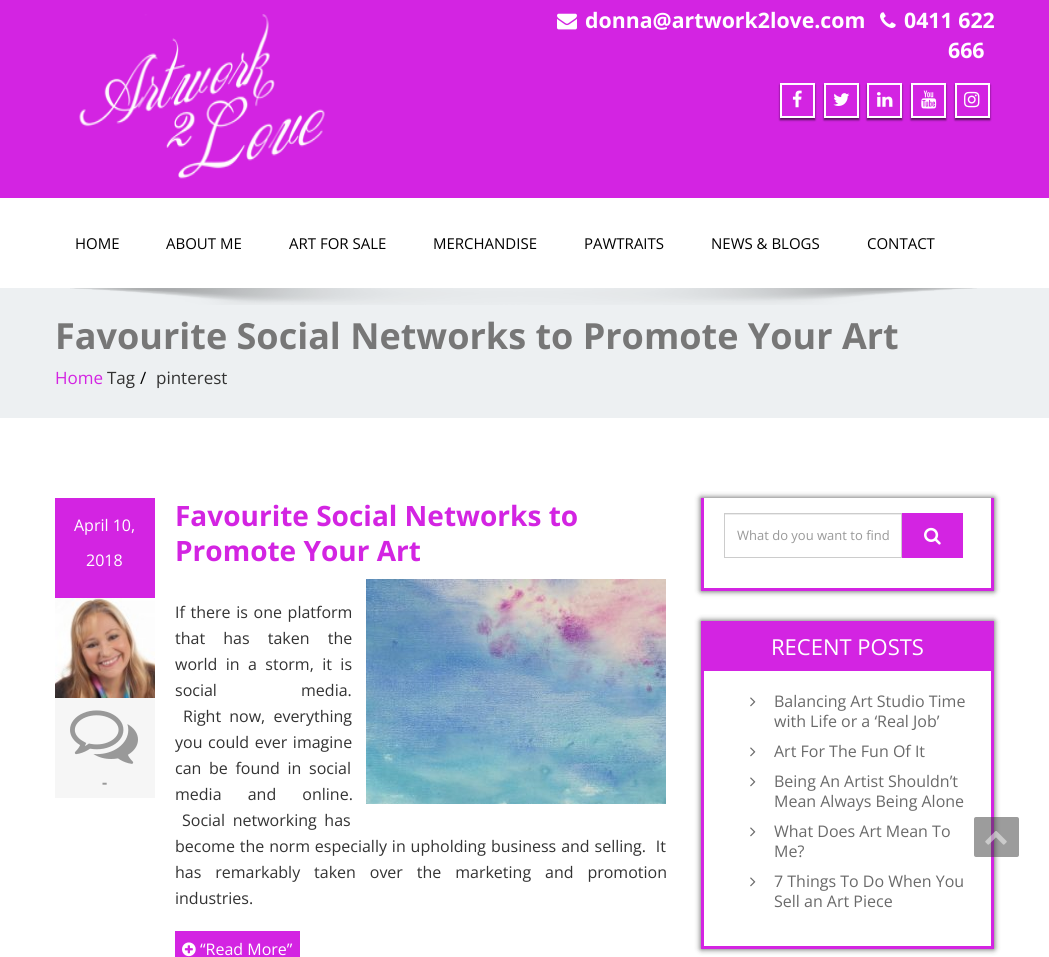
#include <cairo.h>
#include <math.h>
#include <stddef.h>


static void set_color(cairo_t *cr, unsigned color) {
    cairo_set_source_rgb(cr, (color >> 16) / 255.0, (color >> 8 & 255) / 255.0, (color & 255) / 255.0);
}

static void draw_text(cairo_t *cr, double x, double y, const char *s, const char *family, double size, int italic, int bold, unsigned color) {
    cairo_select_font_face(cr, family, italic ? CAIRO_FONT_SLANT_ITALIC : CAIRO_FONT_SLANT_NORMAL,
        bold ? CAIRO_FONT_WEIGHT_BOLD : CAIRO_FONT_WEIGHT_NORMAL);
    cairo_set_font_size(cr, size);
    set_color(cr, color);
    cairo_move_to(cr, x, y);
    cairo_show_text(cr, s);
}

static void draw_spaced(cairo_t *cr, double x, double y, const char *s, double letter, double word) {
    cairo_move_to(cr, x, y);
    while (*s) {
        char ch[5] = {0};
        int n = 0;
        do ch[n++] = *s++; while ((*s & 0xC0) == 0x80);
        cairo_show_text(cr, ch);
        cairo_rel_move_to(cr, letter + word * (*ch == ' '), 0);
    }
}

static void fill_rect(cairo_t *cr, double x, double y, double w, double h, unsigned color) {
    set_color(cr, color);
    cairo_rectangle(cr, x, y, w, h);
    cairo_fill(cr);
}

static void rounded_rect(cairo_t *cr, double x, double y, double w, double h, double r) {
    cairo_new_sub_path(cr);
    cairo_arc(cr, x + w - r, y + h - r, r, 0, M_PI / 2);
    cairo_arc(cr, x + r, y + h - r, r, M_PI / 2, M_PI);
    cairo_arc(cr, x + r, y + r, r, M_PI, 1.5 * M_PI);
    cairo_arc(cr, x + w - r, y + r, r, 1.5 * M_PI, 2 * M_PI);
    cairo_close_path(cr);
}

static void draw_shadow(cairo_t *cr, double x, double y, double w, double h, double r, double blur, double alpha) {
    cairo_push_group_with_content(cr, CAIRO_CONTENT_ALPHA);
    cairo_set_operator(cr, CAIRO_OPERATOR_SOURCE);
    for (int i = 15; i >= -15 && fmin(w, h) + blur * i / 3 > 0; i -= 2) {
        double e = blur * i / 6;
        cairo_set_source_rgba(cr, 0, 0, 0, alpha * erfc((i - 1) / 8.5) / 2);
        rounded_rect(cr, x - e, y - e, w + 2 * e, h + 2 * e, fmax(0, fmin(r + e + blur * .6, fmin(w, h) / 2 + e)));
        cairo_fill(cr);
    }
    cairo_pattern_t *soft = cairo_pop_group(cr);
    cairo_mask(cr, soft);
    cairo_pattern_destroy(soft);
}

static void draw_image(cairo_t *cr, const char *path, double x, double y, double w, double h) {
    cairo_surface_t *image = cairo_image_surface_create_from_png(path);
    cairo_save(cr);
    cairo_set_source_surface(cr, image, x, y);
    cairo_rectangle(cr, x, y, w, h);
    cairo_fill(cr);
    cairo_restore(cr);
    cairo_surface_destroy(image);
}

int main(void) {
    cairo_surface_t *surface = cairo_image_surface_create(CAIRO_FORMAT_RGB24, 1049, 957);
    cairo_t *cr = cairo_create(surface);
    cairo_font_options_t *options = cairo_font_options_create();
    cairo_font_options_set_hint_metrics(options, CAIRO_HINT_METRICS_OFF);
    cairo_font_options_set_hint_style(options, CAIRO_HINT_STYLE_NONE);
    cairo_set_font_options(cr, options);
    cairo_set_miter_limit(cr, 4);
    set_color(cr, 0xFFFFFF);
    cairo_paint(cr);
    fill_rect(cr, 0, 0, 1049, 198, 0xD324E2);
    draw_image(cr, "assets/img1.png", 79, 14, 246, 165);
    draw_image(cr, "assets/img2.png", 557, 13, 20, 17);
    draw_text(cr, 585, 28, "donna@artwork2love.com", "Open Sans", 21.3, 0, 1, 0xFFFFFF);
    draw_image(cr, "assets/img3.png", 880, 12, 16, 16);
    draw_text(cr, 904, 28, "0411 622", "Open Sans", 21.3, 0, 1, 0xFFFFFF);
    draw_text(cr, 948, 58, "666", "Open Sans", 21.3, 0, 1, 0xFFFFFF);
    cairo_save(cr);
    cairo_set_fill_rule(cr, CAIRO_FILL_RULE_EVEN_ODD);
    cairo_new_path(cr);
    cairo_move_to(cr, 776, 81);
    cairo_line_to(cr, 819, 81);
    cairo_line_to(cr, 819, 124);
    cairo_line_to(cr, 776, 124);
    cairo_close_path(cr);
    cairo_move_to(cr, 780, 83);
    cairo_line_to(cr, 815, 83);
    cairo_line_to(cr, 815, 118);
    cairo_line_to(cr, 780, 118);
    cairo_close_path(cr);
    cairo_clip(cr);
    set_color(cr, 0x000000);
    draw_shadow(cr, 780, 85, 35, 35, 0, 1, 0.6);
    cairo_restore(cr);
    cairo_rectangle(cr, 781, 84, 33, 33);
    cairo_stroke(cr);
    draw_image(cr, "assets/img4.png", 792, 90, 10, 18);
    cairo_save(cr);
    cairo_set_fill_rule(cr, CAIRO_FILL_RULE_EVEN_ODD);
    cairo_new_path(cr);
    cairo_move_to(cr, 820, 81);
    cairo_line_to(cr, 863, 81);
    cairo_line_to(cr, 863, 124);
    cairo_line_to(cr, 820, 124);
    cairo_close_path(cr);
    cairo_move_to(cr, 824, 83);
    cairo_line_to(cr, 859, 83);
    cairo_line_to(cr, 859, 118);
    cairo_line_to(cr, 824, 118);
    cairo_close_path(cr);
    cairo_clip(cr);
    set_color(cr, 0x000000);
    draw_shadow(cr, 824, 85, 35, 35, 0, 1, 0.6);
    cairo_restore(cr);
    cairo_rectangle(cr, 825, 84, 33, 33);
    cairo_stroke(cr);
    draw_image(cr, "assets/img5.png", 833, 93, 17, 13);
    cairo_save(cr);
    cairo_set_fill_rule(cr, CAIRO_FILL_RULE_EVEN_ODD);
    cairo_new_path(cr);
    cairo_move_to(cr, 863, 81);
    cairo_line_to(cr, 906, 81);
    cairo_line_to(cr, 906, 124);
    cairo_line_to(cr, 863, 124);
    cairo_close_path(cr);
    cairo_move_to(cr, 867, 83);
    cairo_line_to(cr, 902, 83);
    cairo_line_to(cr, 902, 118);
    cairo_line_to(cr, 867, 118);
    cairo_close_path(cr);
    cairo_clip(cr);
    set_color(cr, 0x000000);
    draw_shadow(cr, 867, 85, 35, 35, 0, 1, 0.6);
    cairo_restore(cr);
    cairo_rectangle(cr, 868, 84, 33, 33);
    cairo_stroke(cr);
    draw_image(cr, "assets/img6.png", 877, 92, 16, 15);
    cairo_save(cr);
    cairo_set_fill_rule(cr, CAIRO_FILL_RULE_EVEN_ODD);
    cairo_new_path(cr);
    cairo_move_to(cr, 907, 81);
    cairo_line_to(cr, 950, 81);
    cairo_line_to(cr, 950, 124);
    cairo_line_to(cr, 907, 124);
    cairo_close_path(cr);
    cairo_move_to(cr, 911, 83);
    cairo_line_to(cr, 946, 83);
    cairo_line_to(cr, 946, 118);
    cairo_line_to(cr, 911, 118);
    cairo_close_path(cr);
    cairo_clip(cr);
    set_color(cr, 0x000000);
    draw_shadow(cr, 911, 85, 35, 35, 0, 1, 0.6);
    cairo_restore(cr);
    cairo_rectangle(cr, 912, 84, 33, 33);
    cairo_stroke(cr);
    draw_image(cr, "assets/img7.png", 921, 90, 16, 19);
    cairo_save(cr);
    cairo_set_fill_rule(cr, CAIRO_FILL_RULE_EVEN_ODD);
    cairo_new_path(cr);
    cairo_move_to(cr, 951, 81);
    cairo_line_to(cr, 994, 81);
    cairo_line_to(cr, 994, 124);
    cairo_line_to(cr, 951, 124);
    cairo_close_path(cr);
    cairo_move_to(cr, 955, 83);
    cairo_line_to(cr, 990, 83);
    cairo_line_to(cr, 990, 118);
    cairo_line_to(cr, 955, 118);
    cairo_close_path(cr);
    cairo_clip(cr);
    set_color(cr, 0x000000);
    draw_shadow(cr, 955, 85, 35, 35, 0, 1, 0.6);
    cairo_restore(cr);
    cairo_rectangle(cr, 956, 84, 33, 33);
    cairo_stroke(cr);
    draw_image(cr, "assets/img8.png", 964, 91, 16, 17);
    draw_text(cr, 75, 249, "HOME", "Open Sans", 15, 0, 0, 0x000000);
    draw_text(cr, 166, 249, "ABOUT ME", "Open Sans", 15, 0, 0, 0x000000);
    draw_text(cr, 289, 249, "ART FOR SALE", "Open Sans", 15, 0, 0, 0x000000);
    draw_text(cr, 433, 249, "MERCHANDISE", "Open Sans", 15, 0, 0, 0x000000);
    draw_text(cr, 584, 249, "PAWTRAITS", "Open Sans", 15, 0, 0, 0x000000);
    draw_text(cr, 711, 249, "NEWS & BLOGS", "Open Sans", 15, 0, 0, 0x000000);
    draw_text(cr, 867, 249, "CONTACT", "Open Sans", 15, 0, 0, 0x000000);
    fill_rect(cr, 0, 288, 1049, 130, 0xEDF0F2);
    draw_image(cr, "assets/img9.png", 70, 288, 907, 17);
    draw_text(cr, 55, 349, "Favourite Social Networks to Promote Your Art", "Open Sans", 36, 0, 1, 0x777777);
    draw_text(cr, 55, 384, "Home", "Open Sans", 17, 0, 0, 0xD324E2);
    draw_text(cr, 107, 384, "Tag", "Open Sans", 17, 0, 0, 0x333333);
    draw_text(cr, 140, 384, "/", "Open Sans", 17, 0, 0, 0x000000);
    draw_text(cr, 156, 384, "pinterest", "Open Sans", 17, 0, 0, 0x333333);
    fill_rect(cr, 55, 498, 100, 100, 0xD324E2);
    draw_text(cr, 74, 531, "April 10,", "Open Sans", 16, 0, 0, 0xFFFFFF);
    draw_text(cr, 86, 566, "2018", "Open Sans", 16, 0, 0, 0xFFFFFF);
    draw_image(cr, "assets/img10.png", 55, 598, 100, 100);
    fill_rect(cr, 55, 698, 100, 100, 0xF6F6F6);
    draw_image(cr, "assets/img11.png", 70, 710, 68, 54);
    draw_text(cr, 102, 788, "-", "Open Sans", 16, 0, 1, 0x999999);
    draw_text(cr, 175, 526, "Favourite Social Networks to", "Open Sans", 28, 0, 1, 0xD324E2);
    draw_text(cr, 175, 561, "Promote Your Art", "Open Sans", 28, 0, 1, 0xD324E2);
    draw_image(cr, "assets/img12.png", 366, 579, 300, 225);
    cairo_select_font_face(cr, "Open Sans", CAIRO_FONT_SLANT_NORMAL, CAIRO_FONT_WEIGHT_NORMAL);
    cairo_set_font_size(cr, 16);
    set_color(cr, 0x333333);
    draw_spaced(cr, 175, 618, "If there is one platform", 0, 1.5);
    draw_spaced(cr, 175, 644, "that has taken the", 0, 14);
    draw_spaced(cr, 175, 670, "world in a storm, it is", 0, 4.25);
    draw_spaced(cr, 175, 696, "social media.", 0, 80);
    draw_spaced(cr, 183, 722, "Right now, everything", 0, 4);
    draw_spaced(cr, 175, 748, "you could ever imagine", 0, 1.5);
    draw_spaced(cr, 175, 774, "can be found in social", 0, 3.5);
    draw_spaced(cr, 175, 800, "media and online.", 0, 22);
    draw_spaced(cr, 182, 826, "Social networking has", 0, 3.5);
    draw_spaced(cr, 175, 852, "become the norm especially in upholding business and selling.  It", 0, 0.75);
    draw_spaced(cr, 175, 878, "has remarkably taken over the marketing and promotion", 0, 9.75);
    draw_text(cr, 175, 904, "industries.", "Open Sans", 16, 0, 0, 0x333333);
    set_color(cr, 0xD324E2);
    cairo_rectangle(cr, 176, 932, 123, 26);
    cairo_fill_preserve(cr);
    cairo_stroke(cr);
    draw_image(cr, "assets/img13.png", 182, 942, 14, 15);
    draw_text(cr, 200, 955, "“Read More”", "Open Sans", 16, 0, 0, 0xFFFFFF);
    cairo_save(cr);
    cairo_set_fill_rule(cr, CAIRO_FILL_RULE_EVEN_ODD);
    cairo_new_path(cr);
    cairo_move_to(cr, 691, 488);
    cairo_line_to(cr, 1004, 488);
    cairo_line_to(cr, 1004, 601);
    cairo_line_to(cr, 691, 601);
    cairo_close_path(cr);
    cairo_move_to(cr, 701, 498);
    cairo_line_to(cr, 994, 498);
    cairo_line_to(cr, 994, 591);
    cairo_line_to(cr, 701, 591);
    cairo_close_path(cr);
    cairo_clip(cr);
    set_color(cr, 0x000000);
    draw_shadow(cr, 701, 498, 293, 93, 0, 3, 0.7);
    cairo_restore(cr);
    fill_rect(cr, 991, 498, 3, 93, 0xD324E2);
    fill_rect(cr, 701, 588, 293, 3, 0xD324E2);
    fill_rect(cr, 701, 498, 3, 93, 0xD324E2);
    fill_rect(cr, 725, 514, 176, 1, 0xECECEC);
    cairo_rectangle(cr, 724.5, 513.5, 177, 44);
    set_color(cr, 0xCCCCCC);
    cairo_set_line_width(cr, 1);
    cairo_stroke(cr);
    draw_text(cr, 737, 540, "What do you want to find", "Open Sans", 13, 0, 0, 0x999999);
    fill_rect(cr, 902, 513, 61, 45, 0xD324E2);
    draw_image(cr, "assets/img14.png", 924, 527, 17, 18);
    cairo_save(cr);
    cairo_set_fill_rule(cr, CAIRO_FILL_RULE_EVEN_ODD);
    cairo_new_path(cr);
    cairo_move_to(cr, 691, 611);
    cairo_line_to(cr, 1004, 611);
    cairo_line_to(cr, 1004, 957);
    cairo_line_to(cr, 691, 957);
    cairo_close_path(cr);
    cairo_move_to(cr, 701, 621);
    cairo_line_to(cr, 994, 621);
    cairo_line_to(cr, 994, 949);
    cairo_line_to(cr, 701, 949);
    cairo_close_path(cr);
    cairo_clip(cr);
    set_color(cr, 0x000000);
    draw_shadow(cr, 701, 621, 293, 328, 0, 3, 0.7);
    cairo_restore(cr);
    fill_rect(cr, 991, 621, 3, 328, 0xD324E2);
    fill_rect(cr, 701, 946, 293, 3, 0xD324E2);
    fill_rect(cr, 701, 621, 3, 328, 0xD324E2);
    fill_rect(cr, 704, 621, 287, 50, 0xD324E2);
    draw_text(cr, 771, 655, "RECENT POSTS", "Open Sans", 22, 0, 0, 0xFFFFFF);
    draw_image(cr, "assets/img15.png", 750, 697, 6, 10);
    draw_text(cr, 774, 707, "Balancing Art Studio Time", "Open Sans", 16, 0, 0, 0x6A6A6A);
    draw_text(cr, 774, 727, "with Life or a ‘Real Job’", "Open Sans", 16, 0, 0, 0x6A6A6A);
    draw_image(cr, "assets/img15.png", 750, 747, 6, 10);
    draw_text(cr, 774, 757, "Art For The Fun Of It", "Open Sans", 16, 0, 0, 0x6A6A6A);
    draw_image(cr, "assets/img15.png", 750, 777, 6, 10);
    draw_text(cr, 774, 787, "Being An Artist Shouldn’t", "Open Sans", 16, 0, 0, 0x6A6A6A);
    draw_text(cr, 774, 807, "Mean Always Being Alone", "Open Sans", 16, 0, 0, 0x6A6A6A);
    draw_image(cr, "assets/img15.png", 750, 827, 6, 10);
    draw_text(cr, 774, 837, "What Does Art Mean To", "Open Sans", 16, 0, 0, 0x6A6A6A);
    draw_text(cr, 774, 857, "Me?", "Open Sans", 16, 0, 0, 0x6A6A6A);
    draw_image(cr, "assets/img15.png", 750, 877, 6, 10);
    draw_text(cr, 774, 887, "7 Things To Do When You", "Open Sans", 16, 0, 0, 0x6A6A6A);
    draw_text(cr, 774, 907, "Sell an Art Piece", "Open Sans", 16, 0, 0, 0x6A6A6A);
    cairo_set_source_rgba(cr, 0.231, 0.231, 0.231, 0.5);
    rounded_rect(cr, 974, 817, 45, 40, 2);
    cairo_fill(cr);
    draw_image(cr, "assets/img16.png", 985, 831, 22, 14);
    cairo_surface_write_to_png(surface, "output.png");
    cairo_font_options_destroy(options);
    cairo_destroy(cr);
    cairo_surface_destroy(surface);
    return 0;
}
